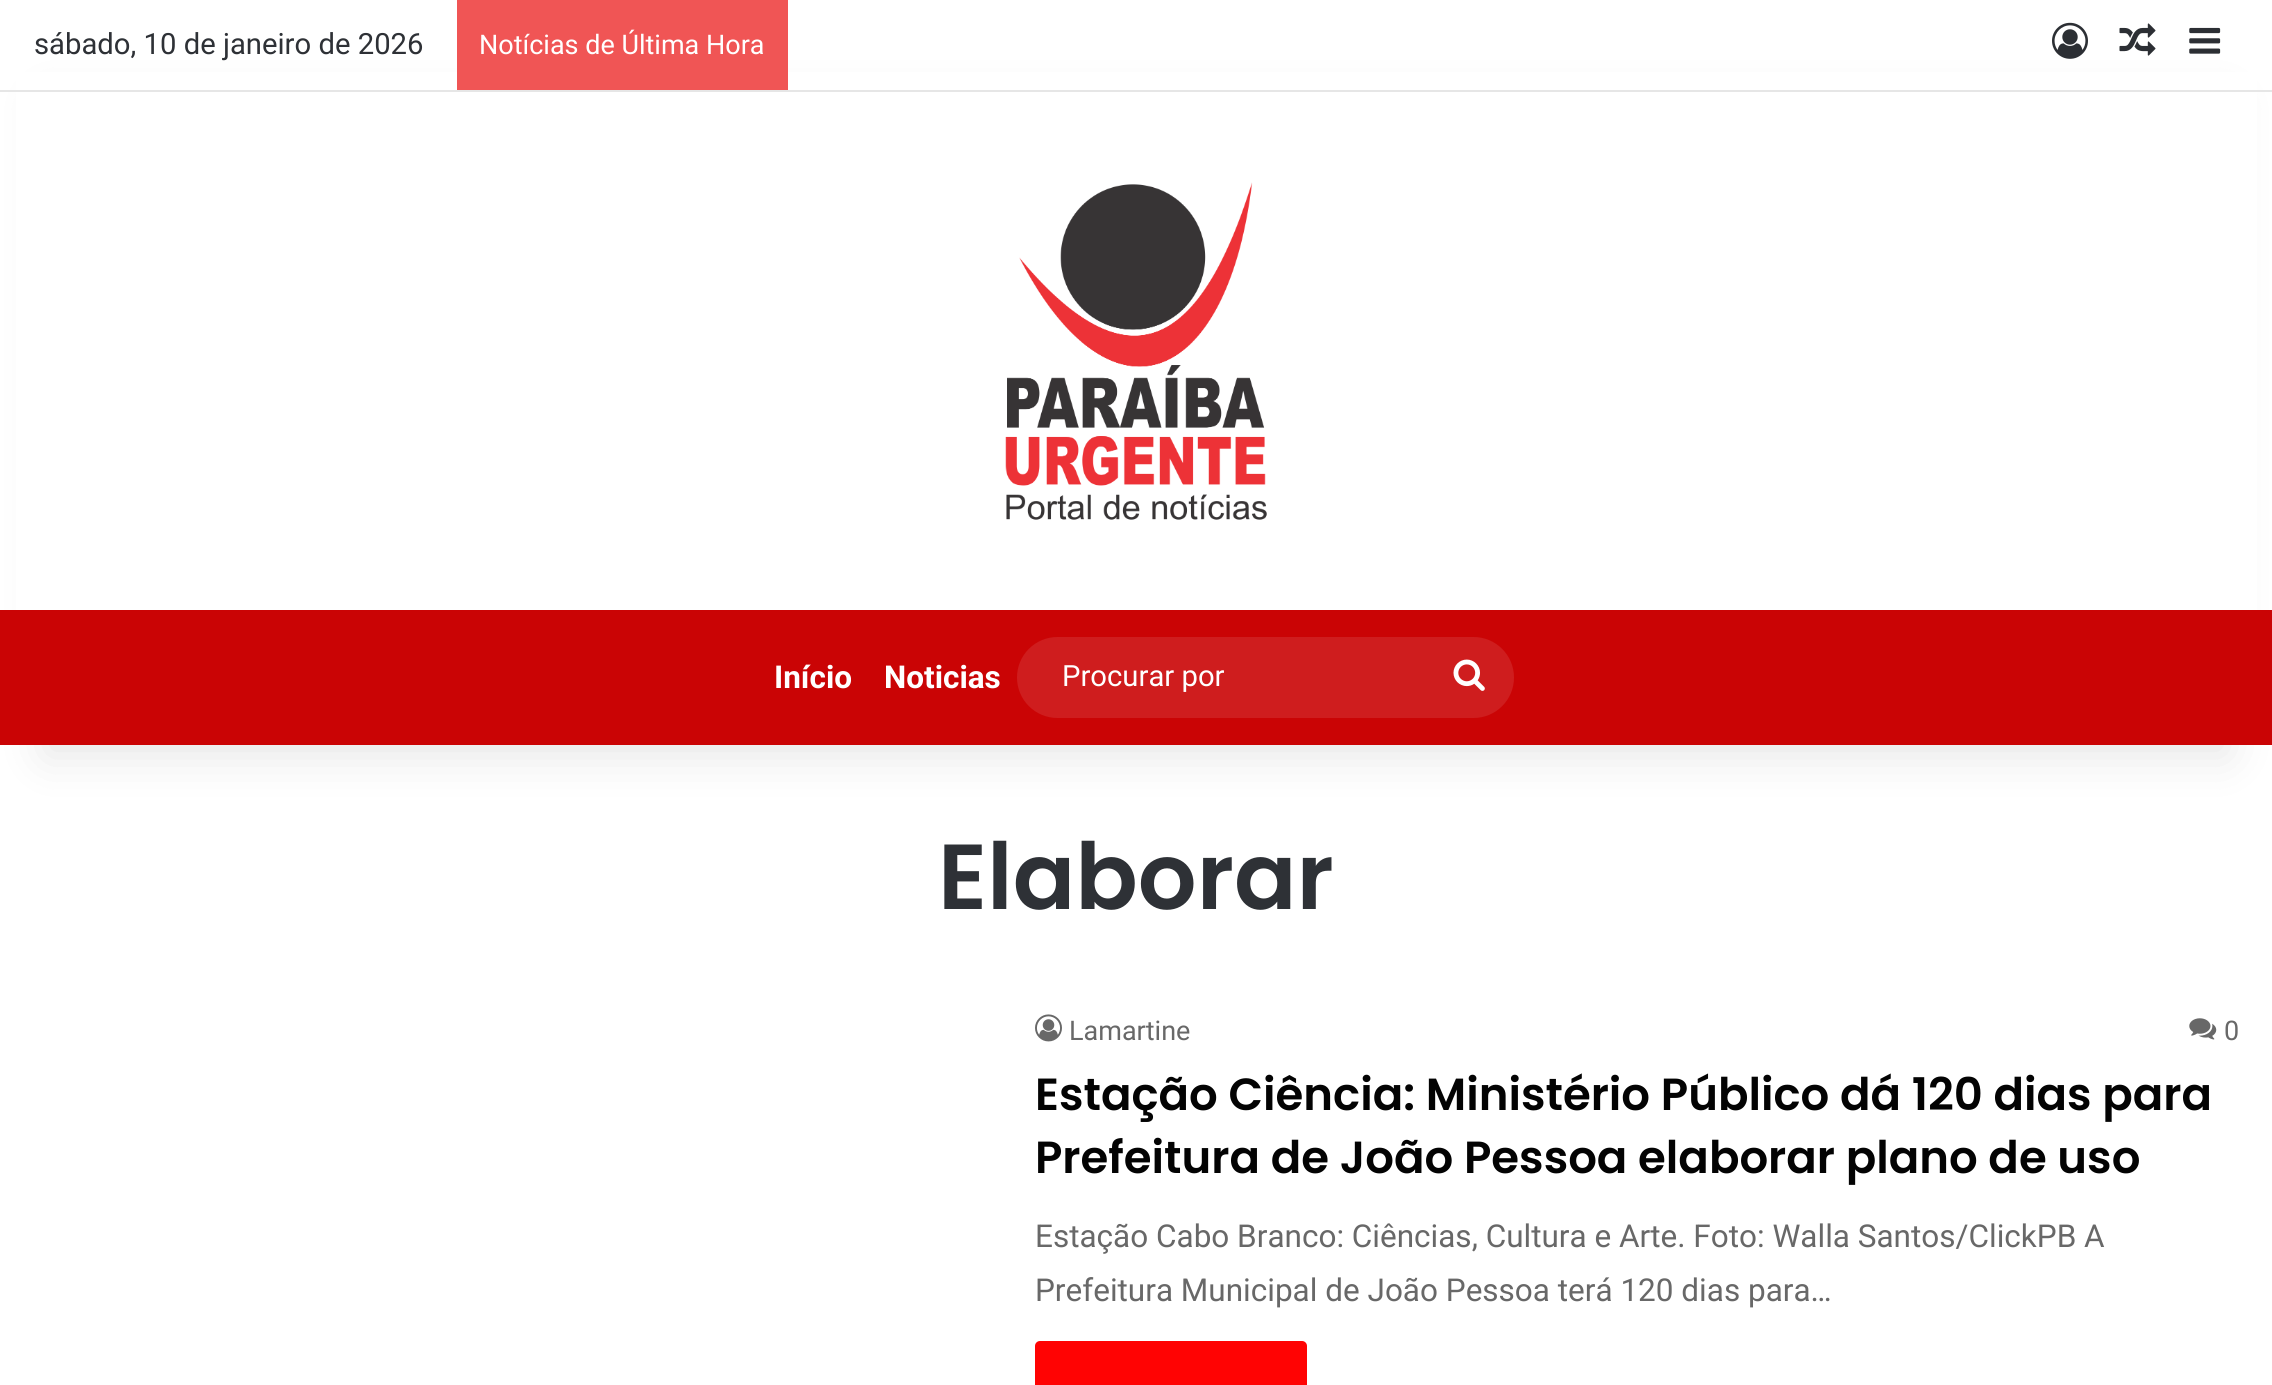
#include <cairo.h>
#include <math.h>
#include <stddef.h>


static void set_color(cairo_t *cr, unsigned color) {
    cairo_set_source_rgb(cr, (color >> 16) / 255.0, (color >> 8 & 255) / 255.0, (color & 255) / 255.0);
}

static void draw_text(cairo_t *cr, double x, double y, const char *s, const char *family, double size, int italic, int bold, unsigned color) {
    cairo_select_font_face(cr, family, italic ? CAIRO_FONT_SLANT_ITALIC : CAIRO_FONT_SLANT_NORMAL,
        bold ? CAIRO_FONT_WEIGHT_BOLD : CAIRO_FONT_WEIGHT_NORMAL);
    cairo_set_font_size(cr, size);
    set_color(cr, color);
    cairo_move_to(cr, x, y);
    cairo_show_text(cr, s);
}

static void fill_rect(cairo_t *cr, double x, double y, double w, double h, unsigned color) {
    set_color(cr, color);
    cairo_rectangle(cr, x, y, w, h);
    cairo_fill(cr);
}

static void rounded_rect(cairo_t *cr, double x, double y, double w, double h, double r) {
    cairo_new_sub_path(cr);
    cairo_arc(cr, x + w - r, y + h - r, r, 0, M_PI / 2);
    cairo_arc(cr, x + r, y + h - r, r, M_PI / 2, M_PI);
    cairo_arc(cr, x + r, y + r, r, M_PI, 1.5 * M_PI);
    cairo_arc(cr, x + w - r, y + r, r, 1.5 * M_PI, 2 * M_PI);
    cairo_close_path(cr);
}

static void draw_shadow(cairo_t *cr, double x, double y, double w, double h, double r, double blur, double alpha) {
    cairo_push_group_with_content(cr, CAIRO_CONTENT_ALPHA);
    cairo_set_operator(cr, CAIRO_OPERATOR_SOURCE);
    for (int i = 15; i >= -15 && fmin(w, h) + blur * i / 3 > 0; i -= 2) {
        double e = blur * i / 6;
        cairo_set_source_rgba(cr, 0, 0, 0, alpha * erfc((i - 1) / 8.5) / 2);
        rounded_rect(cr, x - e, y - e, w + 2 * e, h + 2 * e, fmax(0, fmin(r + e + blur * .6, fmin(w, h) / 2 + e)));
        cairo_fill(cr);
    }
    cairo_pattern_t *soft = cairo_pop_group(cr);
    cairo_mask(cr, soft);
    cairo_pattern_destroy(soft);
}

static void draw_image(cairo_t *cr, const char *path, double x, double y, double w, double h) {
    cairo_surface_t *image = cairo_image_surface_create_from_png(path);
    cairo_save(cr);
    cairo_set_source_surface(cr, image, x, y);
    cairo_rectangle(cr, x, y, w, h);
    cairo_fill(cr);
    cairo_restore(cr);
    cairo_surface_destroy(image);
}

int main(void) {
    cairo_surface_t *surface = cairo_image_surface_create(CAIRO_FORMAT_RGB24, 2272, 1385);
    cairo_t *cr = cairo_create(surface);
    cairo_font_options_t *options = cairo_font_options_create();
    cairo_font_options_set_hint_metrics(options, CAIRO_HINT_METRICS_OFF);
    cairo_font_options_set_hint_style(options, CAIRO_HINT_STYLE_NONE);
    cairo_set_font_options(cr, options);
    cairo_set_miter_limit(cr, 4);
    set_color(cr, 0xFFFFFF);
    cairo_paint(cr);
    set_color(cr, 0x000000);
    draw_shadow(cr, 45, 101, 2183, 655, 0, 22.5, 0.1);
    fill_rect(cr, 16, 72, 2241, 538, 0xFFFFFF);
    fill_rect(cr, 0, 90, 2272, 2, 0xE6E6E6);
    draw_text(cr, 34, 54, "sábado, 10 de janeiro de 2026", "Roboto", 29.25, 0, 0, 0x2E3136);
    fill_rect(cr, 457, 0, 331, 90, 0xF05555);
    draw_text(cr, 479, 54, "Notícias de Última Hora", "Roboto", 27, 0, 0, 0xFFFFFF);
    draw_image(cr, "assets/img1.png", 2052, 22, 36, 37);
    draw_image(cr, "assets/img2.png", 2119, 23, 37, 33);
    draw_image(cr, "assets/img3.png", 2189, 27, 32, 27);
    draw_image(cr, "assets/img4.png", 1005, 182, 262, 338);
    fill_rect(cr, 0, 610, 2272, 135, 0xCA0405);
    draw_text(cr, 774, 688, "Início", "Roboto", 31.5, 0, 1, 0xFFFFFF);
    draw_text(cr, 884, 688, "Noticias", "Roboto", 31.5, 0, 1, 0xFFFFFF);
    set_color(cr, 0xCF1D1E);
    rounded_rect(cr, 1017, 637, 497, 81, 40.5);
    cairo_fill(cr);
    draw_text(cr, 1062, 686, "Procurar por", "Roboto", 29.25, 0, 0, 0xFFFFFF);
    draw_image(cr, "assets/img5.png", 1453, 659, 32, 32);
    draw_text(cr, 938, 909, "Elaborar", "Poppins SemiBold", 92.25, 0, 0, 0x2E3136);
    draw_image(cr, "assets/img6.png", 1035, 1014, 27, 28);
    draw_text(cr, 1069, 1040, "Lamartine", "Roboto", 27, 0, 0, 0x686868);
    draw_image(cr, "assets/img7.png", 2189, 1018, 28, 22);
    draw_text(cr, 2224, 1040, "0", "Roboto", 27, 0, 0, 0x686868);
    draw_text(cr, 1035, 1110, "Estação Ciência: Ministério Público dá 120 dias para", "Poppins SemiBold", 45, 0, 0, 0x030303);
    draw_text(cr, 1035, 1173, "Prefeitura de João Pessoa elaborar plano de uso", "Poppins SemiBold", 45, 0, 0, 0x030303);
    draw_text(cr, 1035, 1247, "Estação Cabo Branco: Ciências, Cultura e Arte. Foto: Walla Santos/ClickPB A", "Roboto", 31.5, 0, 0, 0x686868);
    draw_text(cr, 1035, 1301, "Prefeitura Municipal de João Pessoa terá 120 dias para…", "Roboto", 31.5, 0, 0, 0x686868);
    set_color(cr, 0xFF0303);
    rounded_rect(cr, 1035, 1341, 272, 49, 5);
    cairo_fill(cr);
    cairo_surface_write_to_png(surface, "output.png");
    cairo_font_options_destroy(options);
    cairo_destroy(cr);
    cairo_surface_destroy(surface);
    return 0;
}
